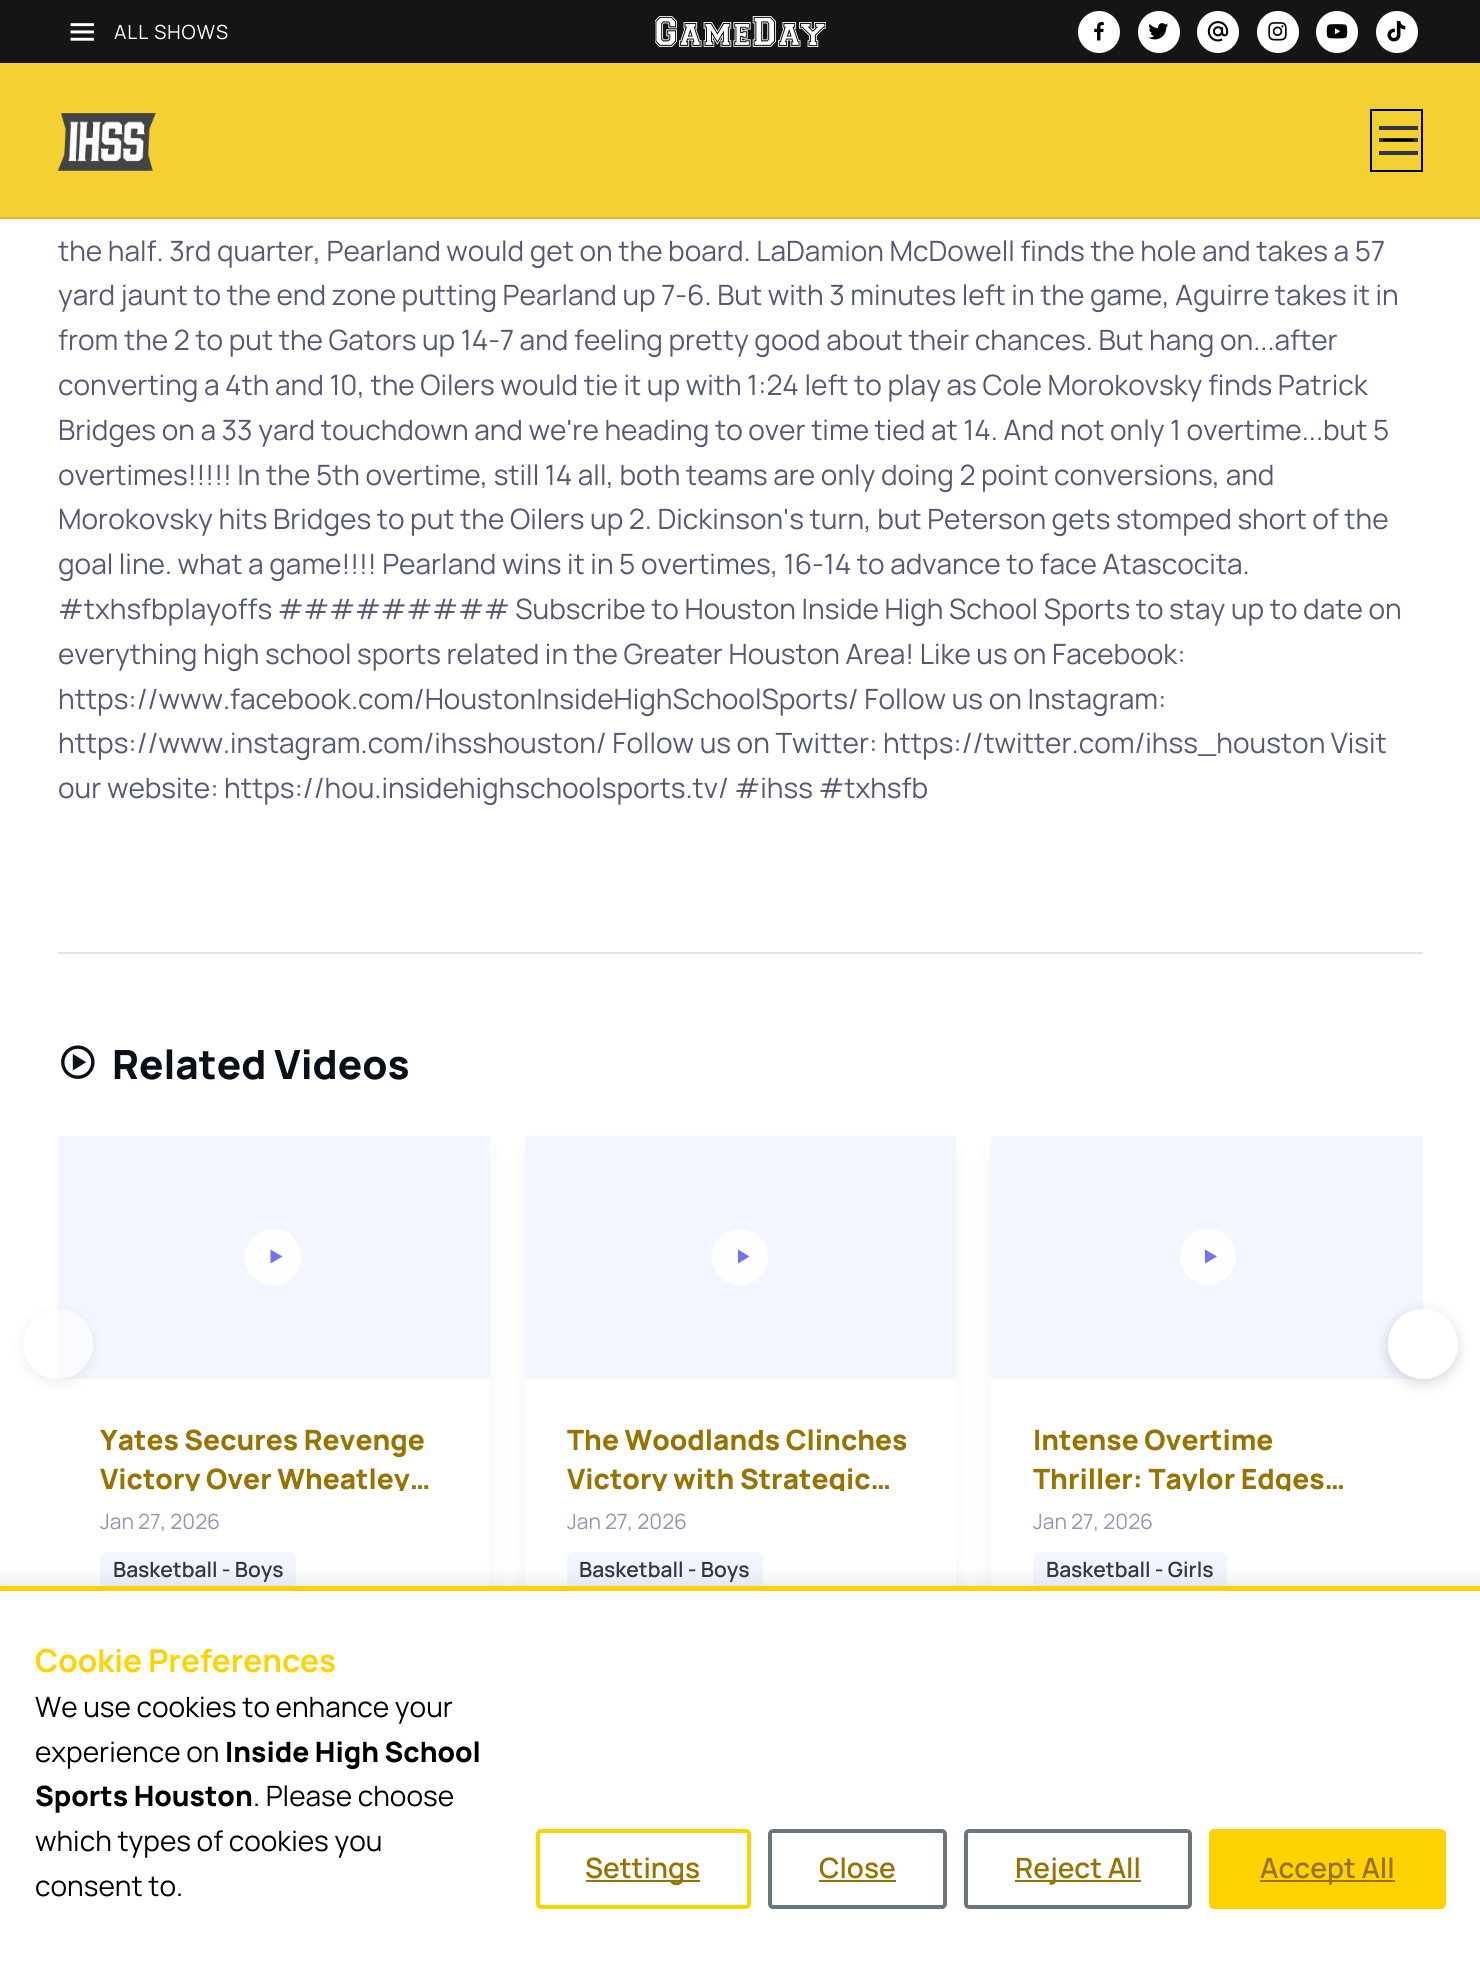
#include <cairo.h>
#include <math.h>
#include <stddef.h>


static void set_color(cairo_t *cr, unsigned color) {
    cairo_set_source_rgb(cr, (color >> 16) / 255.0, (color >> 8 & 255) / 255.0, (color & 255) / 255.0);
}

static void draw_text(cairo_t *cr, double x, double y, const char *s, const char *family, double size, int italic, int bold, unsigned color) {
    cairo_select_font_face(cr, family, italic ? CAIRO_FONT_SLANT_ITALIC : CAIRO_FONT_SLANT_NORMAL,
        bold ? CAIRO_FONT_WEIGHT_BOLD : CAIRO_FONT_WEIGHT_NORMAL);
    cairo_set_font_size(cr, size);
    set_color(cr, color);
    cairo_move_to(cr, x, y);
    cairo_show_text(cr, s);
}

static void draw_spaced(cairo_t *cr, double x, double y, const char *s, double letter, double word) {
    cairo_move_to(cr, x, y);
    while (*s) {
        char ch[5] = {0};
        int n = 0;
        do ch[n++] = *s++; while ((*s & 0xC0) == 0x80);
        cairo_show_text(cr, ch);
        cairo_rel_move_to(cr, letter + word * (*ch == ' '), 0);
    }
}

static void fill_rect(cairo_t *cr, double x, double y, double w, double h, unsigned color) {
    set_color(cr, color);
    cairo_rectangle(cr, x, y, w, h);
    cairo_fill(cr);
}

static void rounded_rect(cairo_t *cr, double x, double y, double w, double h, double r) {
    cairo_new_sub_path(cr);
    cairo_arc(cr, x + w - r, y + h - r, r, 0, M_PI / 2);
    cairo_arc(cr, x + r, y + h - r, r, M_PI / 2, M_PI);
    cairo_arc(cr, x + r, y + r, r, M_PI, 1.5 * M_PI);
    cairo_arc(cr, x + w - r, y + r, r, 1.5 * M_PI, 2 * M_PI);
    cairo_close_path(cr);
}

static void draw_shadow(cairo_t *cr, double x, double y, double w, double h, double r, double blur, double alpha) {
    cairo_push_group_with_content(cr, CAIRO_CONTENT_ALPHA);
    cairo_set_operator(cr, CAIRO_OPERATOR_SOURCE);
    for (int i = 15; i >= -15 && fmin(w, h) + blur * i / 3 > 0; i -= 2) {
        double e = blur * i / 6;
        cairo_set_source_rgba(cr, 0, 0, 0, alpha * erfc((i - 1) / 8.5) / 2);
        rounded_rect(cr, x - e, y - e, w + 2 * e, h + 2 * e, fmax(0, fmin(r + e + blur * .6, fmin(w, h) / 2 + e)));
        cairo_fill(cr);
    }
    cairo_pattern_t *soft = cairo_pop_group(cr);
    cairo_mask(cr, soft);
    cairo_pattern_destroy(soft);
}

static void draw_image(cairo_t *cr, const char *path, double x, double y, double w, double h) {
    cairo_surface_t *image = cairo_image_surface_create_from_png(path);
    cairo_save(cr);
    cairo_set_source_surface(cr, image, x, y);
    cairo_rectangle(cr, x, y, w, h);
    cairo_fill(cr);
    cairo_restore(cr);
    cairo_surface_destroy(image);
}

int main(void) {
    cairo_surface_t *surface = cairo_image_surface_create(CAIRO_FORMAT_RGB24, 1480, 1961);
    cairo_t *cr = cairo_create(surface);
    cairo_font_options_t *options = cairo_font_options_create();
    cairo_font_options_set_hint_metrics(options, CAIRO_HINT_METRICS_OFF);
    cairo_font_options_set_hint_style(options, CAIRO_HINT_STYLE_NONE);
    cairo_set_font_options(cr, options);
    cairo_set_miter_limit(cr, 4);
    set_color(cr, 0xFFFFFF);
    cairo_paint(cr);
    fill_rect(cr, 0, 0, 1480, 63, 0x151515);
    draw_image(cr, "assets/img1.png", 70, 23, 24, 18);
    cairo_select_font_face(cr, "Manrope", CAIRO_FONT_SLANT_NORMAL, CAIRO_FONT_WEIGHT_NORMAL);
    cairo_set_font_size(cr, 19.5);
    set_color(cr, 0xFFFFFF);
    draw_spaced(cr, 114, 39, "ALL SHOWS", 1, 0);
    draw_image(cr, "assets/img2.png", 655, 16, 171, 31);
    cairo_arc(cr, 1099, 32, 21, 0, 2 * M_PI);
    cairo_fill(cr);
    draw_image(cr, "assets/img3.png", 1094, 22, 10, 19);
    cairo_arc(cr, 1159, 32, 21, 0, 2 * M_PI);
    cairo_fill(cr);
    draw_image(cr, "assets/img4.png", 1148, 23, 21, 17);
    cairo_arc(cr, 1218, 32, 21, 0, 2 * M_PI);
    cairo_fill(cr);
    draw_image(cr, "assets/img5.png", 1207, 21, 22, 21);
    cairo_arc(cr, 1278, 32, 21, 0, 2 * M_PI);
    cairo_fill(cr);
    draw_image(cr, "assets/img6.png", 1268, 22, 19, 19);
    cairo_arc(cr, 1337, 32, 21, 0, 2 * M_PI);
    cairo_fill(cr);
    draw_image(cr, "assets/img7.png", 1326, 24, 22, 15);
    cairo_arc(cr, 1397, 32, 21, 0, 2 * M_PI);
    cairo_fill(cr);
    draw_image(cr, "assets/img8.png", 1387, 21, 19, 21);
    fill_rect(cr, 0, 63, 1480, 154, 0xF3D132);
    fill_rect(cr, 0, 217, 1480, 2, 0xDBBC2D);
    draw_image(cr, "assets/img9.png", 57, 113, 99, 58);
    cairo_rectangle(cr, 1371, 110, 51, 61);
    set_color(cr, 0x000000);
    cairo_stroke(cr);
    fill_rect(cr, 1379, 138, 39, 4, 0x33354D);
    cairo_save(cr);
    cairo_rectangle(cr, 1379, 138, 39, 4);
    cairo_clip(cr);
    cairo_new_path(cr);
    cairo_move_to(cr, 1384, 129.5);
    cairo_line_to(cr, 1412.5, 129.5);
    cairo_move_to(cr, 1384, 140);
    cairo_line_to(cr, 1412.5, 140);
    cairo_move_to(cr, 1384, 150.5);
    cairo_line_to(cr, 1412.5, 150.5);
    set_color(cr, 0x000000);
    cairo_set_line_width(cr, 2.6);
    cairo_set_line_cap(cr, CAIRO_LINE_CAP_ROUND);
    cairo_stroke(cr);
    cairo_restore(cr);
    fill_rect(cr, 1379, 126, 39, 4, 0x33354D);
    fill_rect(cr, 1379, 151, 39, 4, 0x33354D);
    draw_text(cr, 58, 261, "the half. 3rd quarter, Pearland would get on the board. LaDamion McDowell finds the hole and takes a 57", "Manrope", 28, 0, 0, 0x565973);
    draw_text(cr, 58, 305, "yard jaunt to the end zone putting Pearland up 7-6. But with 3 minutes left in the game, Aguirre takes it in", "Manrope", 28, 0, 0, 0x565973);
    draw_text(cr, 58, 350, "from the 2 to put the Gators up 14-7 and feeling pretty good about their chances. But hang on...after", "Manrope", 28, 0, 0, 0x565973);
    draw_text(cr, 58, 395, "converting a 4th and 10, the Oilers would tie it up with 1:24 left to play as Cole Morokovsky finds Patrick", "Manrope", 28, 0, 0, 0x565973);
    draw_text(cr, 58, 440, "Bridges on a 33 yard touchdown and we're heading to over time tied at 14. And not only 1 overtime...but 5", "Manrope", 28, 0, 0, 0x565973);
    draw_text(cr, 58, 485, "overtimes!!!!! In the 5th overtime, still 14 all, both teams are only doing 2 point conversions, and", "Manrope", 28, 0, 0, 0x565973);
    draw_text(cr, 58, 529, "Morokovsky hits Bridges to put the Oilers up 2. Dickinson's turn, but Peterson gets stomped short of the", "Manrope", 28, 0, 0, 0x565973);
    draw_text(cr, 58, 574, "goal line. what a game!!!! Pearland wins it in 5 overtimes, 16-14 to advance to face Atascocita.", "Manrope", 28, 0, 0, 0x565973);
    draw_text(cr, 58, 619, "#txhsfbplayoffs ######### Subscribe to Houston Inside High School Sports to stay up to date on", "Manrope", 28, 0, 0, 0x565973);
    draw_text(cr, 58, 664, "everything high school sports related in the Greater Houston Area! Like us on Facebook:", "Manrope", 28, 0, 0, 0x565973);
    draw_text(cr, 58, 709, "https://www.facebook.com/HoustonInsideHighSchoolSports/ Follow us on Instagram:", "Manrope", 28, 0, 0, 0x565973);
    draw_text(cr, 58, 753, "https://www.instagram.com/ihsshouston/ Follow us on Twitter: https://twitter.com/ihss_houston Visit", "Manrope", 28, 0, 0, 0x565973);
    draw_text(cr, 58, 798, "our website: https://hou.insidehighschoolsports.tv/ #ihss #txhsfb", "Manrope", 28, 0, 0, 0x565973);
    fill_rect(cr, 58, 952, 1365, 2, 0xE2E5F1);
    draw_image(cr, "assets/img10.png", 61, 1045, 34, 34);
    draw_text(cr, 112, 1079, "Related Videos", "Manrope ExtraBold", 40.25, 0, 0, 0x0B0F19);
    cairo_save(cr);
    cairo_rectangle(cr, 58, 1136, 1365, 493);
    cairo_clip(cr);
    set_color(cr, 0x0B0F19);
    draw_shadow(cr, 60, 1145, 428, 490, 12, 10.5, 0.06);
    cairo_restore(cr);
    fill_rect(cr, 58, 1379, 432, 207, 0xFFFFFF);
    fill_rect(cr, 58, 1136, 432, 243, 0xF3F6FF);
    cairo_save(cr);
    cairo_set_fill_rule(cr, CAIRO_FILL_RULE_EVEN_ODD);
    cairo_new_path(cr);
    cairo_move_to(cr, 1, 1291);
    cairo_line_to(cr, 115, 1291);
    cairo_line_to(cr, 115, 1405);
    cairo_line_to(cr, 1, 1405);
    cairo_close_path(cr);
    cairo_move_to(cr, 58, 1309);
    cairo_curve_to(cr, 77.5, 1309, 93, 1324.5, 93, 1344);
    cairo_curve_to(cr, 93, 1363.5, 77.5, 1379, 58, 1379);
    cairo_curve_to(cr, 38.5, 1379, 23, 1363.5, 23, 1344);
    cairo_curve_to(cr, 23, 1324.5, 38.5, 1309, 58, 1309);
    cairo_close_path(cr);
    cairo_clip(cr);
    set_color(cr, 0x000000);
    draw_shadow(cr, 23, 1313, 70, 70, 35, 7, 0.07);
    cairo_restore(cr);
    cairo_set_source_rgba(cr, 1, 1, 1, 0.5);
    cairo_arc(cr, 58, 1344, 35, 0, 2 * M_PI);
    cairo_fill(cr);
    cairo_save(cr);
    cairo_rectangle(cr, 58, 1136, 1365, 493);
    cairo_clip(cr);
    set_color(cr, 0x0B0F19);
    draw_shadow(cr, 992, 1145, 429, 490, 12, 10.5, 0.06);
    cairo_restore(cr);
    fill_rect(cr, 991, 1379, 432, 207, 0xFFFFFF);
    fill_rect(cr, 991, 1136, 432, 243, 0xF3F6FF);
    set_color(cr, 0x000000);
    draw_shadow(cr, 1388, 1313, 70, 70, 35, 7, 0.15);
    set_color(cr, 0xFFFFFF);
    cairo_arc(cr, 1423, 1344, 35, 0, 2 * M_PI);
    cairo_fill(cr);
    draw_image(cr, "assets/img11.png", 256, 1241, 38, 27);
    cairo_set_source_rgba(cr, 1, 1, 1, 0.9);
    cairo_arc(cr, 273, 1257, 27, 0, 2 * M_PI);
    cairo_fill_preserve(cr);
    set_color(cr, 0xFEFEFF);
    cairo_stroke(cr);
    set_color(cr, 0x7174F2);
    cairo_new_path(cr);
    cairo_move_to(cr, 270.5, 1249.5);
    cairo_line_to(cr, 270.5, 1263.5);
    cairo_line_to(cr, 282.5, 1256.5);
    cairo_close_path(cr);
    cairo_fill(cr);
    draw_text(cr, 100, 1450, "Yates Secures Revenge", "Manrope ExtraBold", 28, 0, 0, 0x997300);
    cairo_save(cr);
    cairo_rectangle(cr, 100, 1421, 348, 70);
    cairo_clip(cr);
    draw_text(cr, 100, 1489, "Victory Over Wheatley…", "Manrope ExtraBold", 28, 0, 0, 0x997300);
    cairo_restore(cr);
    draw_text(cr, 100, 1529, "Jan 27, 2026", "Manrope", 21, 0, 0, 0x9397AD);
    set_color(cr, 0xF3F6FF);
    rounded_rect(cr, 100, 1552, 196, 35, 7);
    cairo_fill(cr);
    draw_text(cr, 113, 1577, "Basketball - Boys", "Manrope SemiBold", 21, 0, 0, 0x33354D);
    set_color(cr, 0x0B0F19);
    draw_shadow(cr, 527, 1145, 427, 490, 12, 10.5, 0.06);
    fill_rect(cr, 525, 1379, 431, 207, 0xFFFFFF);
    fill_rect(cr, 525, 1136, 431, 243, 0xF3F6FF);
    draw_image(cr, "assets/img12.png", 721, 1241, 38, 27);
    cairo_set_source_rgba(cr, 1, 1, 1, 0.9);
    cairo_arc(cr, 740, 1257, 27, 0, 2 * M_PI);
    cairo_fill_preserve(cr);
    set_color(cr, 0xFEFEFF);
    cairo_stroke(cr);
    set_color(cr, 0x7275F2);
    cairo_new_path(cr);
    cairo_move_to(cr, 738, 1249.5);
    cairo_line_to(cr, 738, 1263.5);
    cairo_line_to(cr, 749.5, 1256.5);
    cairo_close_path(cr);
    cairo_fill(cr);
    draw_text(cr, 567, 1450, "The Woodlands Clinches", "Manrope ExtraBold", 28, 0, 0, 0x997300);
    cairo_save(cr);
    cairo_rectangle(cr, 567, 1421, 347, 70);
    cairo_clip(cr);
    draw_text(cr, 567, 1489, "Victory with Strategic…", "Manrope ExtraBold", 28, 0, 0, 0x997300);
    cairo_restore(cr);
    draw_text(cr, 567, 1529, "Jan 27, 2026", "Manrope", 21, 0, 0, 0x9397AD);
    set_color(cr, 0xF3F6FF);
    rounded_rect(cr, 567, 1552, 196, 35, 7);
    cairo_fill(cr);
    draw_text(cr, 579, 1577, "Basketball - Boys", "Manrope SemiBold", 21, 0, 0, 0x33354D);
    draw_image(cr, "assets/img13.png", 1188, 1241, 38, 27);
    cairo_set_source_rgba(cr, 1, 1, 1, 0.9);
    cairo_arc(cr, 1208, 1257, 27, 0, 2 * M_PI);
    cairo_fill_preserve(cr);
    set_color(cr, 0xFEFEFF);
    cairo_stroke(cr);
    set_color(cr, 0x7275F2);
    cairo_new_path(cr);
    cairo_move_to(cr, 1205, 1249.5);
    cairo_line_to(cr, 1205, 1263.5);
    cairo_line_to(cr, 1217, 1256.5);
    cairo_close_path(cr);
    cairo_fill(cr);
    draw_text(cr, 1033, 1450, "Intense Overtime", "Manrope ExtraBold", 28, 0, 0, 0x997300);
    cairo_save(cr);
    cairo_rectangle(cr, 1033, 1421, 348, 70);
    cairo_clip(cr);
    draw_text(cr, 1033, 1489, "Thriller: Taylor Edges…", "Manrope ExtraBold", 28, 0, 0, 0x997300);
    cairo_restore(cr);
    draw_text(cr, 1033, 1529, "Jan 27, 2026", "Manrope", 21, 0, 0, 0x9397AD);
    set_color(cr, 0xF3F6FF);
    rounded_rect(cr, 1033, 1552, 194, 35, 7);
    cairo_fill(cr);
    draw_text(cr, 1046, 1577, "Basketball - Girls", "Manrope SemiBold", 21, 0, 0, 0x33354D);
    set_color(cr, 0x000000);
    draw_shadow(cr, 0, 1582, 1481, 376, 0, 9, 0.1);
    fill_rect(cr, 0, 1591, 1480, 370, 0xFFFFFF);
    fill_rect(cr, 0, 1586, 1480, 5, 0xFFD203);
    draw_text(cr, 35, 1672, "Cookie Preferences", "Manrope", 31.5, 0, 1, 0xFFD203);
    draw_text(cr, 35, 1717, "We use cookies to enhance your", "Manrope", 28, 0, 0, 0x000000);
    draw_text(cr, 35, 1762, "experience on", "Manrope", 28, 0, 0, 0x000000);
    draw_text(cr, 225, 1762, "Inside High School", "Manrope ExtraBold", 28, 0, 0, 0x000000);
    draw_text(cr, 35, 1806, "Sports Houston", "Manrope ExtraBold", 28, 0, 0, 0x000000);
    draw_text(cr, 253, 1806, ". Please choose", "Manrope", 28, 0, 0, 0x000000);
    draw_text(cr, 35, 1851, "which types of cookies you", "Manrope", 28, 0, 0, 0x000000);
    draw_text(cr, 35, 1896, "consent to.", "Manrope", 28, 0, 0, 0x000000);
    rounded_rect(cr, 538, 1831, 211, 76, 3);
    set_color(cr, 0xFFD203);
    cairo_set_line_width(cr, 4);
    cairo_stroke(cr);
    fill_rect(cr, 586, 1880, 114, 2, 0x997300);
    draw_text(cr, 585, 1878, "Settings", "Manrope SemiBold", 28, 0, 0, 0x997300);
    rounded_rect(cr, 770, 1831, 175, 76, 3);
    set_color(cr, 0x6C757D);
    cairo_stroke(cr);
    draw_text(cr, 819, 1878, "Close", "Manrope SemiBold", 28, 0, 0, 0x997300);
    fill_rect(cr, 819, 1880, 77, 2, 0x997300);
    rounded_rect(cr, 966, 1831, 224, 76, 3);
    set_color(cr, 0x6C757D);
    cairo_stroke(cr);
    fill_rect(cr, 1015, 1880, 126, 2, 0x997300);
    draw_text(cr, 1015, 1878, "Reject All", "Manrope SemiBold", 28, 0, 0, 0x997300);
    set_color(cr, 0xFFD203);
    rounded_rect(cr, 1211, 1831, 233, 76, 3);
    cairo_fill_preserve(cr);
    cairo_stroke(cr);
    fill_rect(cr, 1260, 1880, 135, 2, 0x997300);
    draw_text(cr, 1260, 1878, "Accept All", "Manrope SemiBold", 28, 0, 0, 0x997300);
    cairo_surface_write_to_png(surface, "output.png");
    cairo_font_options_destroy(options);
    cairo_destroy(cr);
    cairo_surface_destroy(surface);
    return 0;
}
